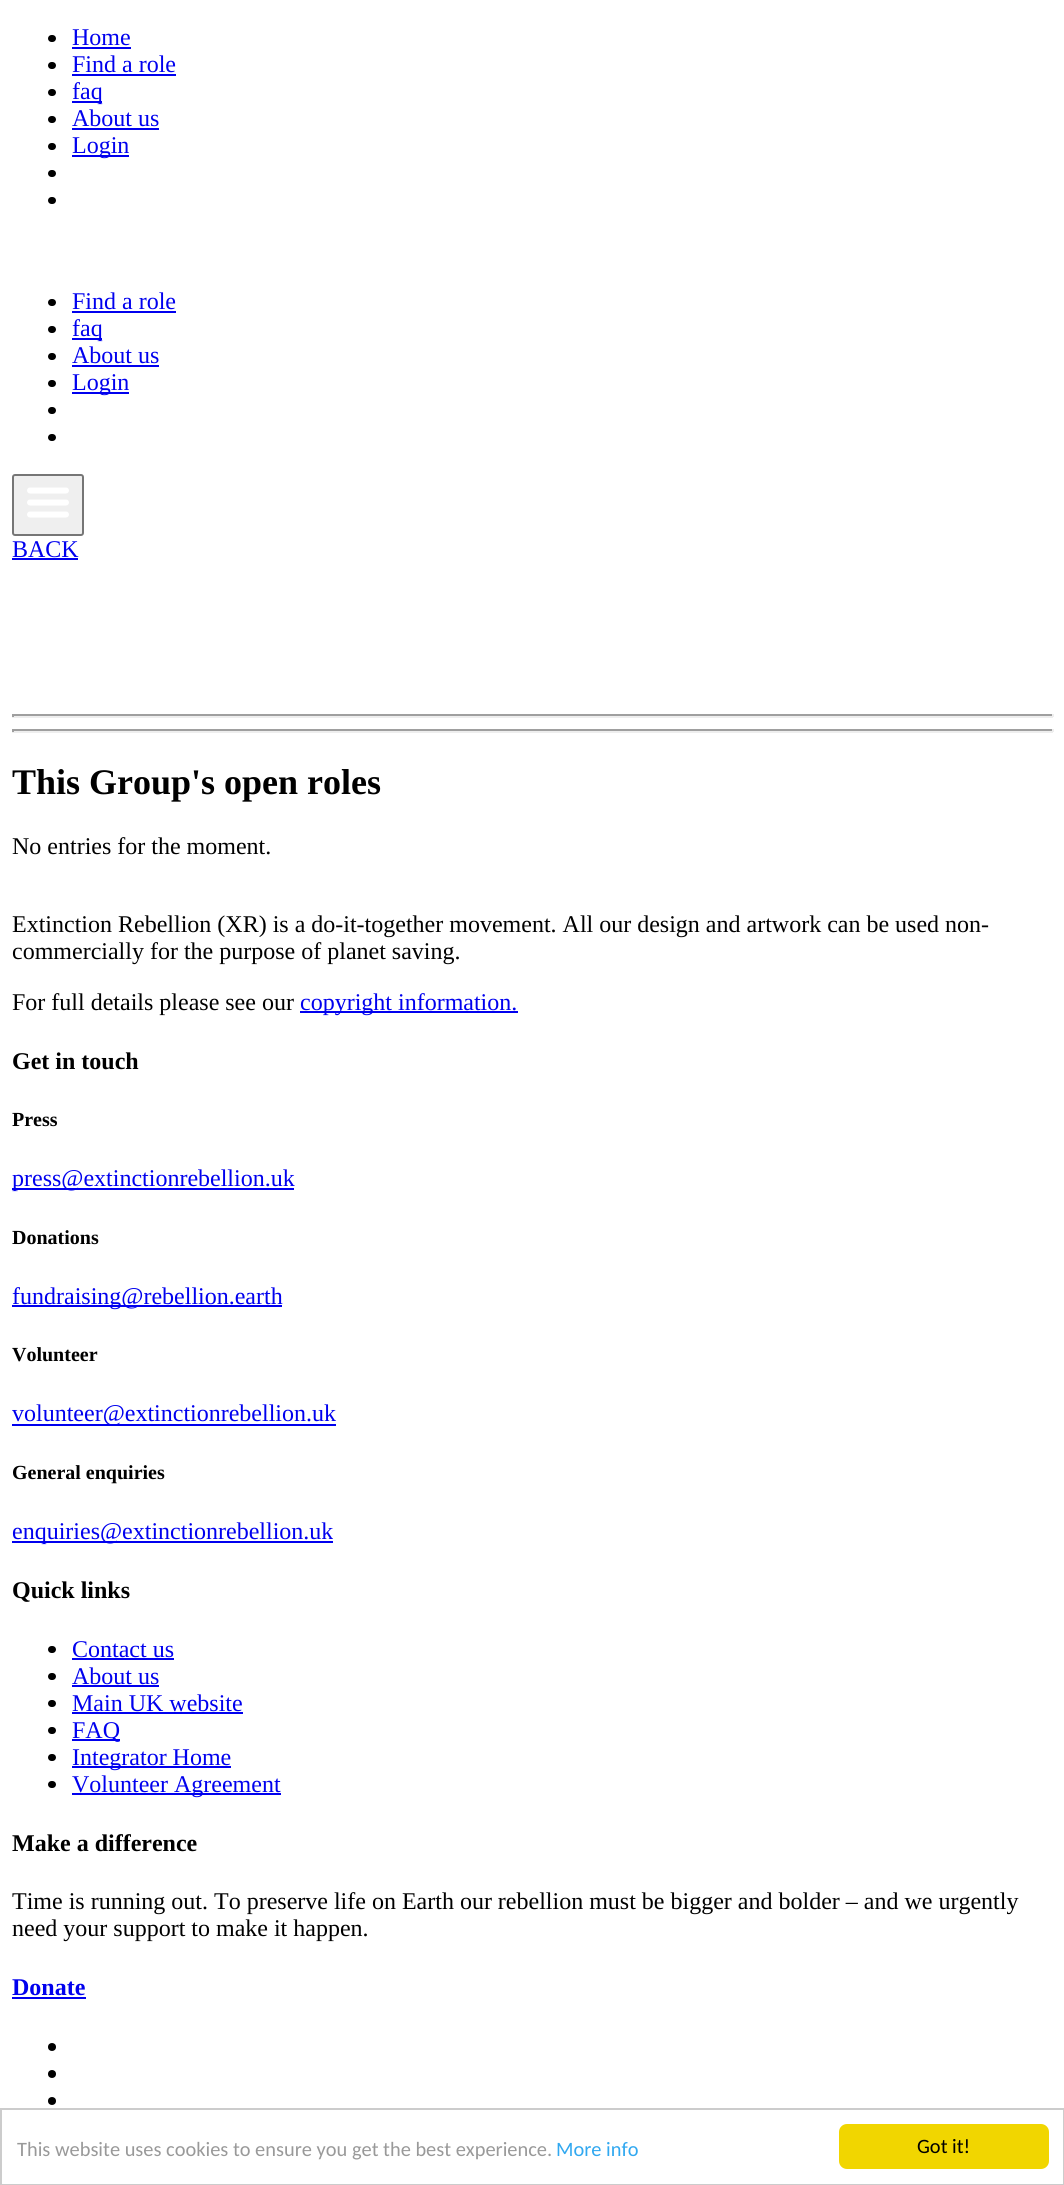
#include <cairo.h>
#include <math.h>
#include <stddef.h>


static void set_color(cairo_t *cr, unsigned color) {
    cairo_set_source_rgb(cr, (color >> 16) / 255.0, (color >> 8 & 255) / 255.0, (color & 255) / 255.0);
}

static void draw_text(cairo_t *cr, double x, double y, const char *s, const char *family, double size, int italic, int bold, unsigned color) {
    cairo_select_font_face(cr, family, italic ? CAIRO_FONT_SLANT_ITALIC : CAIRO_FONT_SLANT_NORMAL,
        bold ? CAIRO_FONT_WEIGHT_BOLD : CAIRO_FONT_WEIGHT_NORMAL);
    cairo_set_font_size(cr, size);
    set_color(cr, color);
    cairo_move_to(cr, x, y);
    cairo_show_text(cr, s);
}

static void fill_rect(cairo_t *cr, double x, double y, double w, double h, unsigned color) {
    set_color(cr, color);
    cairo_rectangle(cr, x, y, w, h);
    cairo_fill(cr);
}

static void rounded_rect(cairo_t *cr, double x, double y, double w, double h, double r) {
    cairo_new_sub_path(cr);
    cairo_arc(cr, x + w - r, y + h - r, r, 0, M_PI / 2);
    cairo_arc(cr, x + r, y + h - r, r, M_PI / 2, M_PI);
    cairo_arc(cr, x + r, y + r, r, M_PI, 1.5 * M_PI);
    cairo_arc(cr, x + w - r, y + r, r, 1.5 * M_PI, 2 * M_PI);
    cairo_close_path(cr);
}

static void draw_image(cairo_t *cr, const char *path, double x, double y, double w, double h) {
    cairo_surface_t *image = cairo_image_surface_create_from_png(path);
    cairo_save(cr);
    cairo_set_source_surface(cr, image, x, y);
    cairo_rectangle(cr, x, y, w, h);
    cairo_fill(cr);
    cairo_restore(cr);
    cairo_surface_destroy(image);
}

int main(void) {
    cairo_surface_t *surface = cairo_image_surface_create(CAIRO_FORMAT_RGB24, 1064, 2185);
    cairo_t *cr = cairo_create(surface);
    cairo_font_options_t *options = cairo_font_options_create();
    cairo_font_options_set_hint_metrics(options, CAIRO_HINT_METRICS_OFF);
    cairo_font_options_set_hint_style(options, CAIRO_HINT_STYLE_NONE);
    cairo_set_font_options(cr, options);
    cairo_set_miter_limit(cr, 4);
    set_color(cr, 0xFFFFFF);
    cairo_paint(cr);
    set_color(cr, 0x000000);
    rounded_rect(cr, 48, 35, 8, 7, 3.5);
    cairo_fill(cr);
    draw_text(cr, 72, 45, "Home", "Liberation Serif", 24, 0, 0, 0x0000EE);
    fill_rect(cr, 72, 47, 59, 2, 0x0000EE);
    set_color(cr, 0x000000);
    rounded_rect(cr, 48, 62, 8, 7, 3.5);
    cairo_fill(cr);
    draw_text(cr, 72, 72, "Find a role", "Liberation Serif", 24, 0, 0, 0x0000EE);
    fill_rect(cr, 72, 74, 104, 2, 0x0000EE);
    set_color(cr, 0x000000);
    rounded_rect(cr, 48, 89, 8, 7, 3.5);
    cairo_fill(cr);
    fill_rect(cr, 72, 101, 30, 2, 0x0000EE);
    draw_text(cr, 72, 99, "faq", "Liberation Serif", 24, 0, 0, 0x0000EE);
    set_color(cr, 0x000000);
    rounded_rect(cr, 48, 116, 8, 7, 3.5);
    cairo_fill(cr);
    draw_text(cr, 72, 126, "About us", "Liberation Serif", 24, 0, 0, 0x0000EE);
    fill_rect(cr, 72, 128, 87, 2, 0x0000EE);
    set_color(cr, 0x000000);
    rounded_rect(cr, 48, 143, 8, 7, 3.5);
    cairo_fill(cr);
    fill_rect(cr, 72, 155, 57, 2, 0x0000EE);
    draw_text(cr, 72, 153, "Login", "Liberation Serif", 24, 0, 0, 0x0000EE);
    set_color(cr, 0x000000);
    rounded_rect(cr, 48, 170, 8, 7, 3.5);
    cairo_fill(cr);
    rounded_rect(cr, 48, 197, 8, 7, 3.5);
    cairo_fill(cr);
    rounded_rect(cr, 48, 299, 8, 7, 3.5);
    cairo_fill(cr);
    draw_text(cr, 72, 309, "Find a role", "Liberation Serif", 24, 0, 0, 0x0000EE);
    fill_rect(cr, 72, 311, 104, 2, 0x0000EE);
    set_color(cr, 0x000000);
    rounded_rect(cr, 48, 326, 8, 7, 3.5);
    cairo_fill(cr);
    fill_rect(cr, 72, 338, 30, 2, 0x0000EE);
    draw_text(cr, 72, 336, "faq", "Liberation Serif", 24, 0, 0, 0x0000EE);
    set_color(cr, 0x000000);
    rounded_rect(cr, 48, 353, 8, 7, 3.5);
    cairo_fill(cr);
    draw_text(cr, 72, 363, "About us", "Liberation Serif", 24, 0, 0, 0x0000EE);
    fill_rect(cr, 72, 365, 87, 2, 0x0000EE);
    set_color(cr, 0x000000);
    rounded_rect(cr, 48, 380, 8, 7, 3.5);
    cairo_fill(cr);
    fill_rect(cr, 72, 392, 57, 2, 0x0000EE);
    draw_text(cr, 72, 390, "Login", "Liberation Serif", 24, 0, 0, 0x0000EE);
    set_color(cr, 0x000000);
    rounded_rect(cr, 48, 407, 8, 7, 3.5);
    cairo_fill(cr);
    rounded_rect(cr, 48, 434, 8, 7, 3.5);
    cairo_fill(cr);
    set_color(cr, 0xEFEFEF);
    rounded_rect(cr, 13, 475, 70, 60, 2);
    cairo_fill_preserve(cr);
    set_color(cr, 0x767676);
    cairo_stroke(cr);
    draw_image(cr, "assets/img1.png", 27, 487, 42, 31);
    draw_text(cr, 12, 557, "BACK", "Liberation Serif", 24, 0, 0, 0x0000EE);
    fill_rect(cr, 12, 558, 66, 2, 0x0000EE);
    fill_rect(cr, 12, 714, 1041, 2, 0x9F9F9F);
    fill_rect(cr, 1052, 714, 2, 3, 0xEEEEEE);
    fill_rect(cr, 12, 716, 1041, 2, 0xEEEEEE);
    fill_rect(cr, 12, 714, 2, 3, 0x9F9F9F);
    fill_rect(cr, 12, 729, 1041, 2, 0x9F9F9F);
    fill_rect(cr, 1052, 729, 2, 3, 0xEEEEEE);
    fill_rect(cr, 12, 731, 1041, 2, 0xEEEEEE);
    fill_rect(cr, 12, 729, 2, 3, 0x9F9F9F);
    draw_text(cr, 12, 794, "This Group's open roles", "Liberation Serif", 36, 0, 1, 0x000000);
    draw_text(cr, 12, 854, "No entries for the moment.", "Liberation Serif", 24, 0, 0, 0x000000);
    draw_text(cr, 12, 932, "Extinction Rebellion (XR) is a do-it-together movement. All our design and artwork can be used non-", "Liberation Serif", 24, 0, 0, 0x000000);
    draw_text(cr, 12, 959, "commercially for the purpose of planet saving.", "Liberation Serif", 24, 0, 0, 0x000000);
    draw_text(cr, 12, 1010, "For full details please see our", "Liberation Serif", 24, 0, 0, 0x000000);
    fill_rect(cr, 300, 1011, 218, 2, 0x0000EE);
    draw_text(cr, 300, 1010, "copyright information.", "Liberation Serif", 24, 0, 0, 0x0000EE);
    draw_text(cr, 12, 1069, "Get in touch", "Liberation Serif", 24, 0, 1, 0x000000);
    draw_text(cr, 12, 1126, "Press", "Liberation Serif", 20, 0, 1, 0x000000);
    fill_rect(cr, 12, 1188, 282, 2, 0x0000EE);
    draw_text(cr, 12, 1186, "press@extinctionrebellion.uk", "Liberation Serif", 24, 0, 0, 0x0000EE);
    draw_text(cr, 12, 1244, "Donations", "Liberation Serif", 20, 0, 1, 0x000000);
    fill_rect(cr, 12, 1305, 270, 2, 0x0000EE);
    draw_text(cr, 12, 1304, "fundraising@rebellion.earth", "Liberation Serif", 24, 0, 0, 0x0000EE);
    draw_text(cr, 12, 1361, "Volunteer", "Liberation Serif", 20, 0, 1, 0x000000);
    fill_rect(cr, 12, 1424, 324, 2, 0x0000EE);
    draw_text(cr, 12, 1421, "volunteer@extinctionrebellion.uk", "Liberation Serif", 24, 0, 0, 0x0000EE);
    draw_text(cr, 12, 1479, "General enquiries", "Liberation Serif", 20, 0, 1, 0x000000);
    fill_rect(cr, 12, 1541, 321, 2, 0x0000EE);
    draw_text(cr, 12, 1539, "enquiries@extinctionrebellion.uk", "Liberation Serif", 24, 0, 0, 0x0000EE);
    draw_text(cr, 12, 1598, "Quick links", "Liberation Serif", 24, 0, 1, 0x000000);
    rounded_rect(cr, 48, 1646, 8, 7, 3.5);
    cairo_fill(cr);
    draw_text(cr, 72, 1657, "Contact us", "Liberation Serif", 24, 0, 0, 0x0000EE);
    fill_rect(cr, 72, 1658, 102, 2, 0x0000EE);
    set_color(cr, 0x000000);
    rounded_rect(cr, 48, 1673, 8, 7, 3.5);
    cairo_fill(cr);
    draw_text(cr, 72, 1684, "About us", "Liberation Serif", 24, 0, 0, 0x0000EE);
    fill_rect(cr, 72, 1685, 87, 2, 0x0000EE);
    set_color(cr, 0x000000);
    rounded_rect(cr, 48, 1700, 8, 7, 3.5);
    cairo_fill(cr);
    draw_text(cr, 72, 1711, "Main UK website", "Liberation Serif", 24, 0, 0, 0x0000EE);
    fill_rect(cr, 72, 1712, 171, 2, 0x0000EE);
    set_color(cr, 0x000000);
    rounded_rect(cr, 48, 1727, 8, 7, 3.5);
    cairo_fill(cr);
    fill_rect(cr, 72, 1739, 48, 2, 0x0000EE);
    draw_text(cr, 72, 1738, "FAQ", "Liberation Serif", 24, 0, 0, 0x0000EE);
    set_color(cr, 0x000000);
    rounded_rect(cr, 48, 1754, 8, 7, 3.5);
    cairo_fill(cr);
    fill_rect(cr, 72, 1766, 159, 2, 0x0000EE);
    draw_text(cr, 72, 1765, "Integrator Home", "Liberation Serif", 24, 0, 0, 0x0000EE);
    set_color(cr, 0x000000);
    rounded_rect(cr, 48, 1781, 8, 7, 3.5);
    cairo_fill(cr);
    fill_rect(cr, 72, 1793, 209, 2, 0x0000EE);
    draw_text(cr, 72, 1792, "Volunteer Agreement", "Liberation Serif", 24, 0, 0, 0x0000EE);
    draw_text(cr, 12, 1851, "Make a difference", "Liberation Serif", 24, 0, 1, 0x000000);
    draw_text(cr, 12, 1909, "Time is running out. To preserve life on Earth our rebellion must be bigger and bolder – and we urgently", "Liberation Serif", 24, 0, 0, 0x000000);
    draw_text(cr, 12, 1936, "need your support to make it happen.", "Liberation Serif", 24, 0, 0, 0x000000);
    draw_text(cr, 12, 1995, "Donate", "Liberation Serif", 24, 0, 1, 0x0000EE);
    fill_rect(cr, 12, 1997, 74, 2, 0x0000EE);
    set_color(cr, 0x000000);
    cairo_new_path(cr);
    cairo_arc(cr, 52, 2047, 4, 0, 2 * M_PI);
    cairo_fill(cr);
    cairo_arc(cr, 52, 2074, 4, 0, 2 * M_PI);
    cairo_fill(cr);
    cairo_arc(cr, 52, 2101, 4, 0, 2 * M_PI);
    cairo_fill(cr);
    cairo_rectangle(cr, 1, 2109, 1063, 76);
    set_color(cr, 0xCCCCCC);
    cairo_stroke(cr);
    draw_text(cr, 17, 2156, "This website uses cookies to ensure you get the best experience.", "Carlito", 20.4, 0, 0, 0x999999);
    draw_text(cr, 556, 2156, "More info", "Carlito", 20.4, 0, 0, 0x31A8F0);
    set_color(cr, 0xF1D600);
    rounded_rect(cr, 839, 2124, 210, 45, 8);
    cairo_fill(cr);
    draw_text(cr, 917, 2153, "Got it!", "Carlito", 20.4, 0, 0, 0x000000);
    cairo_surface_write_to_png(surface, "output.png");
    cairo_font_options_destroy(options);
    cairo_destroy(cr);
    cairo_surface_destroy(surface);
    return 0;
}
